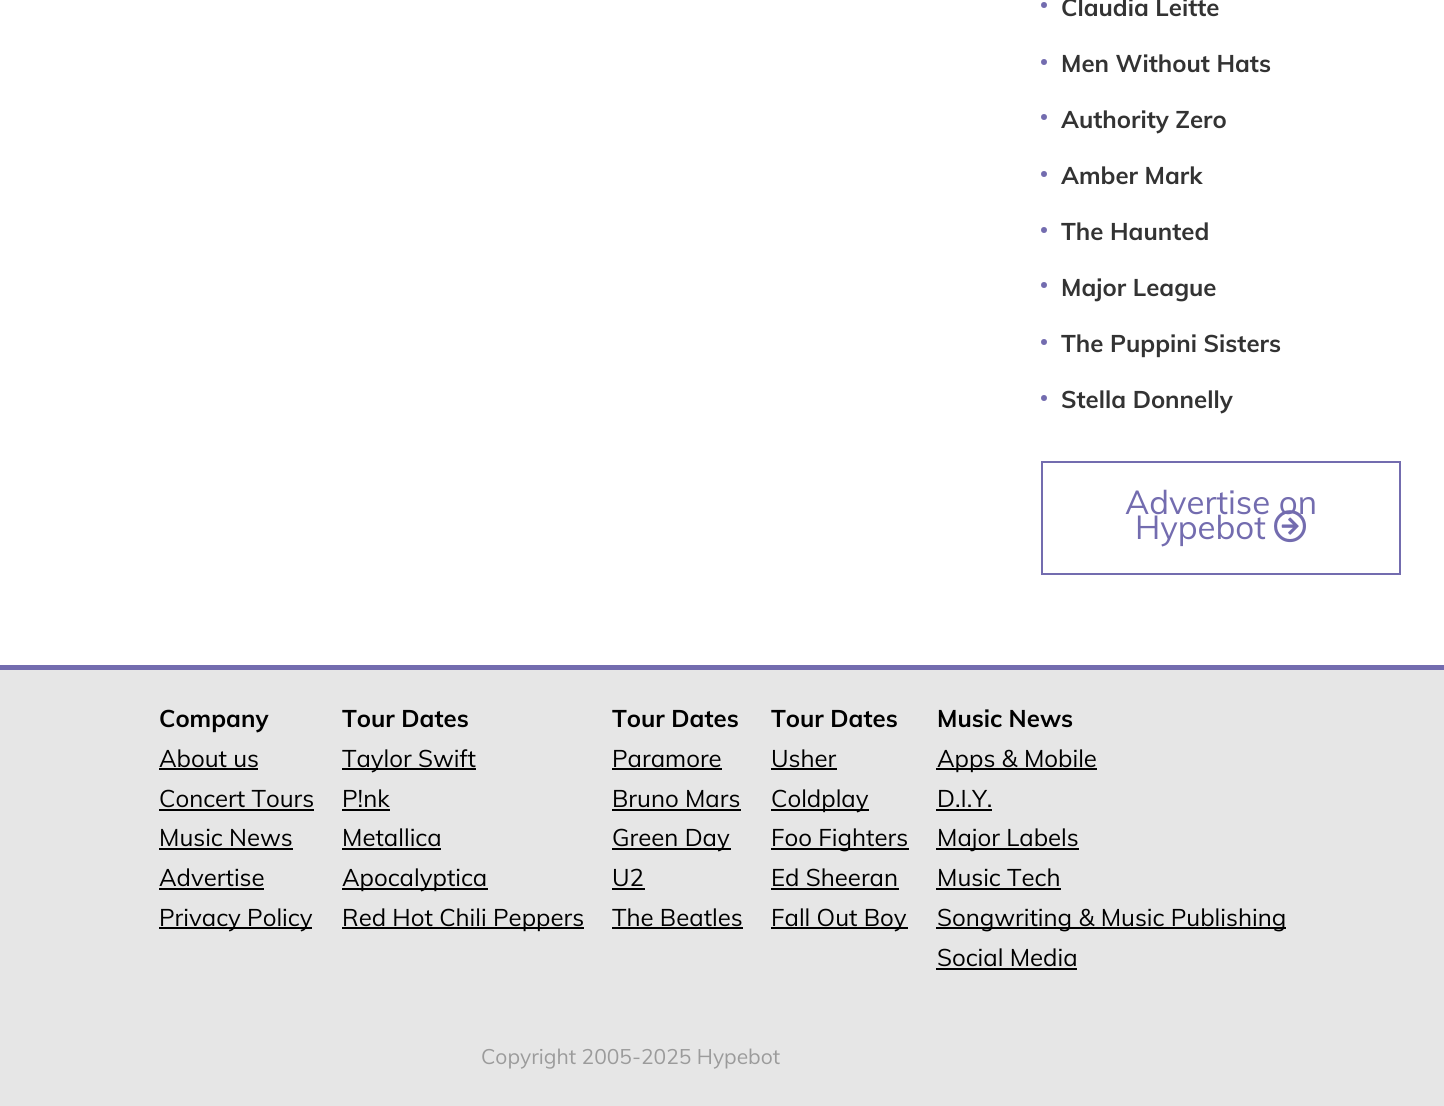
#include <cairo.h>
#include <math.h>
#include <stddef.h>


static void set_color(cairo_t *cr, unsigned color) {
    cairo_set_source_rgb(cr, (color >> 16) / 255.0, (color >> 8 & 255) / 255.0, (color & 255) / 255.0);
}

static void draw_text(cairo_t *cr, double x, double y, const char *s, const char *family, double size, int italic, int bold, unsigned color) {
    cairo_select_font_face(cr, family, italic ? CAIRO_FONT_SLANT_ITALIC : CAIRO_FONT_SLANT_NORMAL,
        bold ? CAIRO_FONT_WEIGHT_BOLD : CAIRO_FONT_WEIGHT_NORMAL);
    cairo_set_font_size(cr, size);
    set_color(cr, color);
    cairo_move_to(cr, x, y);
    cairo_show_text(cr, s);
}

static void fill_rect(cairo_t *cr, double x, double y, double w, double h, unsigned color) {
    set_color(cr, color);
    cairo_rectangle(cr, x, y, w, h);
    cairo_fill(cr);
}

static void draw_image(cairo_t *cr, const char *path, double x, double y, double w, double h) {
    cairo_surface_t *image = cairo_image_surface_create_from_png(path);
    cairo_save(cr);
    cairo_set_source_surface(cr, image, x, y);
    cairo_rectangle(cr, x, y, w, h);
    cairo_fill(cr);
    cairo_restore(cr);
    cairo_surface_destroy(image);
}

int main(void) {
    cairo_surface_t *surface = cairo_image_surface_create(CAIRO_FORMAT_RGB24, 1444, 1106);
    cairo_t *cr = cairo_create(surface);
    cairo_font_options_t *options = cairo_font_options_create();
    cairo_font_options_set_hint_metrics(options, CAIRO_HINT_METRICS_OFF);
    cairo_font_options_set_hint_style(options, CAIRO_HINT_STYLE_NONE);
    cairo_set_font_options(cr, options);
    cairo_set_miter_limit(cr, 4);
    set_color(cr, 0xFFFFFF);
    cairo_paint(cr);
    set_color(cr, 0x736CAF);
    cairo_arc(cr, 1044, 5, 3, 0, 2 * M_PI);
    cairo_fill(cr);
    draw_text(cr, 1061, 16, "Claudia Leitte", "Muli", 24, 0, 1, 0x333333);
    set_color(cr, 0x736CAF);
    cairo_new_path(cr);
    cairo_arc(cr, 1044, 62, 3, 0, 2 * M_PI);
    cairo_fill(cr);
    draw_text(cr, 1061, 72, "Men Without Hats", "Muli", 24, 0, 1, 0x333333);
    set_color(cr, 0x736CAF);
    cairo_new_path(cr);
    cairo_arc(cr, 1044, 117, 3, 0, 2 * M_PI);
    cairo_fill(cr);
    draw_text(cr, 1061, 128, "Authority Zero", "Muli", 24, 0, 1, 0x333333);
    set_color(cr, 0x736CAF);
    cairo_new_path(cr);
    cairo_arc(cr, 1044, 174, 3, 0, 2 * M_PI);
    cairo_fill(cr);
    draw_text(cr, 1061, 184, "Amber Mark", "Muli", 24, 0, 1, 0x333333);
    set_color(cr, 0x736CAF);
    cairo_new_path(cr);
    cairo_arc(cr, 1044, 230, 3, 0, 2 * M_PI);
    cairo_fill(cr);
    draw_text(cr, 1061, 240, "The Haunted", "Muli", 24, 0, 1, 0x333333);
    set_color(cr, 0x736CAF);
    cairo_new_path(cr);
    cairo_arc(cr, 1044, 285, 3, 0, 2 * M_PI);
    cairo_fill(cr);
    draw_text(cr, 1061, 296, "Major League", "Muli", 24, 0, 1, 0x333333);
    set_color(cr, 0x736CAF);
    cairo_new_path(cr);
    cairo_arc(cr, 1044, 342, 3, 0, 2 * M_PI);
    cairo_fill(cr);
    draw_text(cr, 1061, 352, "The Puppini Sisters", "Muli", 24, 0, 1, 0x333333);
    set_color(cr, 0x736CAF);
    cairo_new_path(cr);
    cairo_arc(cr, 1044, 398, 3, 0, 2 * M_PI);
    cairo_fill(cr);
    draw_text(cr, 1061, 408, "Stella Donnelly", "Muli", 24, 0, 1, 0x333333);
    cairo_rectangle(cr, 1042, 462, 358, 112);
    set_color(cr, 0x736CAF);
    cairo_stroke(cr);
    draw_text(cr, 1125, 514, "Advertise on", "Muli", 33, 0, 0, 0x736CAF);
    draw_text(cr, 1135, 539, "Hypebot", "Muli", 33, 0, 0, 0x736CAF);
    draw_image(cr, "assets/img1.png", 1274, 510, 32, 33);
    fill_rect(cr, 0, 670, 1444, 436, 0xE6E6E6);
    fill_rect(cr, 0, 665, 1444, 5, 0x736CAF);
    draw_text(cr, 159, 727, "Company", "Muli", 24, 0, 1, 0x000000);
    draw_text(cr, 159, 767, "About us", "Muli", 24, 0, 0, 0x000000);
    fill_rect(cr, 159, 768, 99, 2, 0x000000);
    draw_text(cr, 159, 807, "Concert Tours", "Muli", 24, 0, 0, 0x000000);
    fill_rect(cr, 159, 809, 155, 2, 0x000000);
    draw_text(cr, 159, 846, "Music News", "Muli", 24, 0, 0, 0x000000);
    fill_rect(cr, 159, 848, 134, 2, 0x000000);
    draw_text(cr, 159, 886, "Advertise", "Muli", 24, 0, 0, 0x000000);
    fill_rect(cr, 159, 888, 105, 2, 0x000000);
    fill_rect(cr, 159, 927, 153, 2, 0x000000);
    draw_text(cr, 159, 926, "Privacy Policy", "Muli", 24, 0, 0, 0x000000);
    draw_text(cr, 342, 727, "Tour Dates", "Muli", 24, 0, 1, 0x000000);
    fill_rect(cr, 342, 768, 134, 2, 0x000000);
    draw_text(cr, 342, 767, "Taylor Swift", "Muli", 24, 0, 0, 0x000000);
    draw_text(cr, 342, 807, "P!nk", "Muli", 24, 0, 0, 0x000000);
    fill_rect(cr, 342, 809, 48, 2, 0x000000);
    draw_text(cr, 342, 846, "Metallica", "Muli", 24, 0, 0, 0x000000);
    fill_rect(cr, 342, 848, 99, 2, 0x000000);
    fill_rect(cr, 342, 888, 146, 2, 0x000000);
    draw_text(cr, 342, 886, "Apocalyptica", "Muli", 24, 0, 0, 0x000000);
    fill_rect(cr, 342, 927, 242, 2, 0x000000);
    draw_text(cr, 342, 926, "Red Hot Chili Peppers", "Muli", 24, 0, 0, 0x000000);
    draw_text(cr, 612, 727, "Tour Dates", "Muli", 24, 0, 1, 0x000000);
    draw_text(cr, 612, 767, "Paramore", "Muli", 24, 0, 0, 0x000000);
    fill_rect(cr, 612, 768, 110, 2, 0x000000);
    draw_text(cr, 612, 807, "Bruno Mars", "Muli", 24, 0, 0, 0x000000);
    fill_rect(cr, 612, 809, 129, 2, 0x000000);
    fill_rect(cr, 612, 848, 119, 2, 0x000000);
    draw_text(cr, 612, 846, "Green Day", "Muli", 24, 0, 0, 0x000000);
    draw_text(cr, 612, 886, "U2", "Muli", 24, 0, 0, 0x000000);
    fill_rect(cr, 612, 888, 33, 2, 0x000000);
    draw_text(cr, 612, 926, "The Beatles", "Muli", 24, 0, 0, 0x000000);
    fill_rect(cr, 612, 927, 131, 2, 0x000000);
    draw_text(cr, 771, 727, "Tour Dates", "Muli", 24, 0, 1, 0x000000);
    draw_text(cr, 771, 767, "Usher", "Muli", 24, 0, 0, 0x000000);
    fill_rect(cr, 771, 768, 66, 2, 0x000000);
    fill_rect(cr, 771, 809, 98, 2, 0x000000);
    draw_text(cr, 771, 807, "Coldplay", "Muli", 24, 0, 0, 0x000000);
    fill_rect(cr, 771, 848, 138, 2, 0x000000);
    draw_text(cr, 771, 846, "Foo Fighters", "Muli", 24, 0, 0, 0x000000);
    draw_text(cr, 771, 886, "Ed Sheeran", "Muli", 24, 0, 0, 0x000000);
    fill_rect(cr, 771, 888, 128, 2, 0x000000);
    fill_rect(cr, 771, 927, 137, 2, 0x000000);
    draw_text(cr, 771, 926, "Fall Out Boy", "Muli", 24, 0, 0, 0x000000);
    draw_text(cr, 937, 727, "Music News", "Muli", 24, 0, 1, 0x000000);
    fill_rect(cr, 936, 768, 161, 2, 0x000000);
    draw_text(cr, 937, 767, "Apps & Mobile", "Muli", 24, 0, 0, 0x000000);
    draw_text(cr, 937, 807, "D.I.Y.", "Muli", 24, 0, 0, 0x000000);
    fill_rect(cr, 936, 809, 56, 2, 0x000000);
    fill_rect(cr, 936, 848, 143, 2, 0x000000);
    draw_text(cr, 937, 846, "Major Labels", "Muli", 24, 0, 0, 0x000000);
    draw_text(cr, 937, 886, "Music Tech", "Muli", 24, 0, 0, 0x000000);
    fill_rect(cr, 936, 888, 125, 2, 0x000000);
    fill_rect(cr, 936, 927, 350, 2, 0x000000);
    draw_text(cr, 937, 926, "Songwriting & Music Publishing", "Muli", 24, 0, 0, 0x000000);
    draw_text(cr, 937, 966, "Social Media", "Muli", 24, 0, 0, 0x000000);
    fill_rect(cr, 936, 968, 141, 2, 0x000000);
    draw_text(cr, 481, 1064, "Copyright 2005-2025 Hypebot", "Muli", 21, 0, 0, 0x9B9B9B);
    cairo_surface_write_to_png(surface, "output.png");
    cairo_font_options_destroy(options);
    cairo_destroy(cr);
    cairo_surface_destroy(surface);
    return 0;
}
